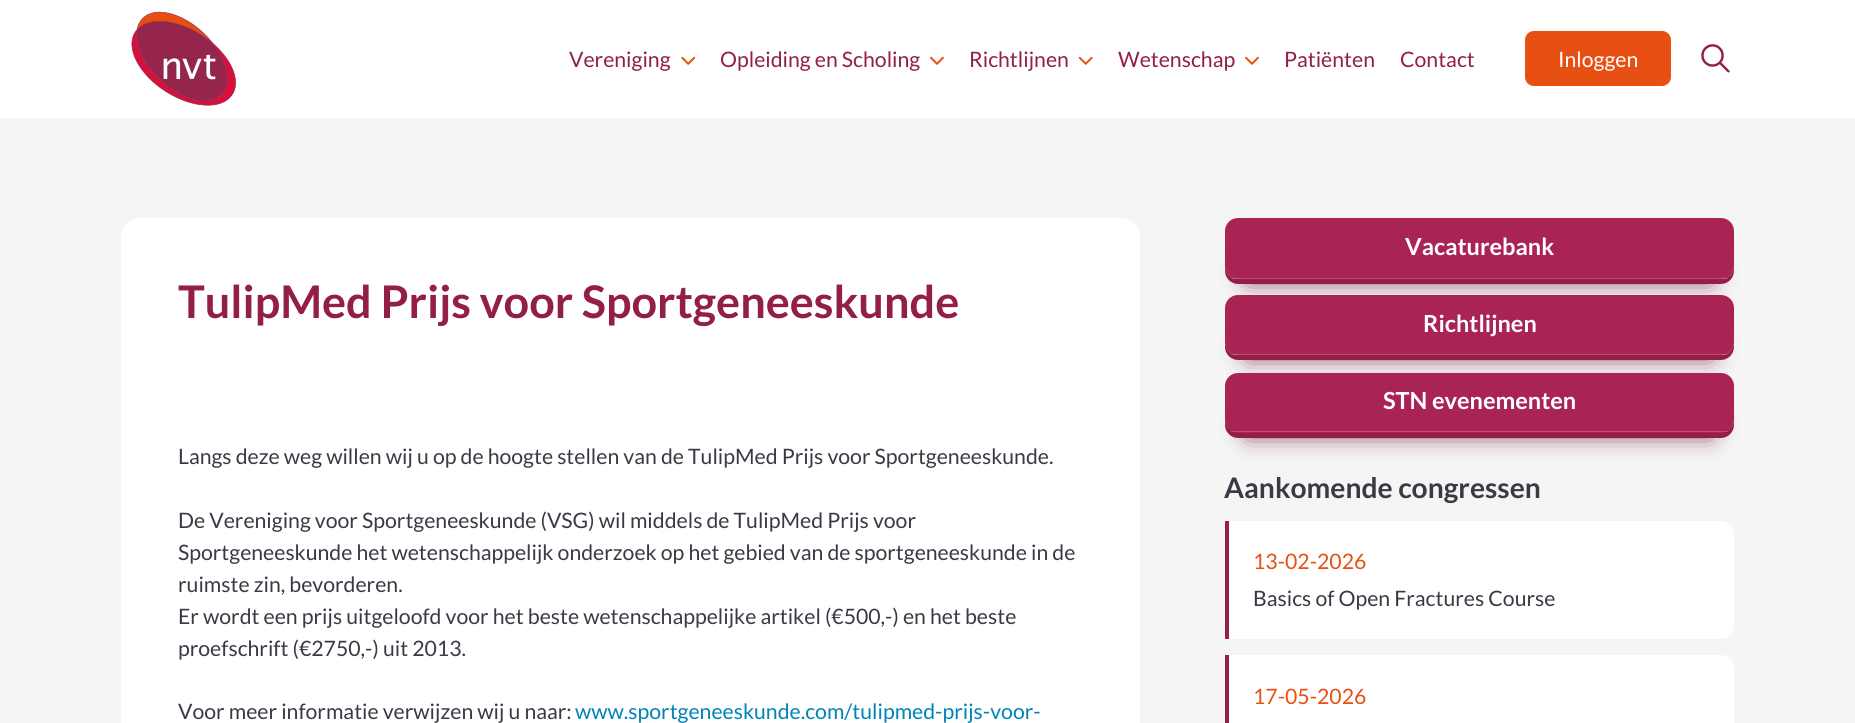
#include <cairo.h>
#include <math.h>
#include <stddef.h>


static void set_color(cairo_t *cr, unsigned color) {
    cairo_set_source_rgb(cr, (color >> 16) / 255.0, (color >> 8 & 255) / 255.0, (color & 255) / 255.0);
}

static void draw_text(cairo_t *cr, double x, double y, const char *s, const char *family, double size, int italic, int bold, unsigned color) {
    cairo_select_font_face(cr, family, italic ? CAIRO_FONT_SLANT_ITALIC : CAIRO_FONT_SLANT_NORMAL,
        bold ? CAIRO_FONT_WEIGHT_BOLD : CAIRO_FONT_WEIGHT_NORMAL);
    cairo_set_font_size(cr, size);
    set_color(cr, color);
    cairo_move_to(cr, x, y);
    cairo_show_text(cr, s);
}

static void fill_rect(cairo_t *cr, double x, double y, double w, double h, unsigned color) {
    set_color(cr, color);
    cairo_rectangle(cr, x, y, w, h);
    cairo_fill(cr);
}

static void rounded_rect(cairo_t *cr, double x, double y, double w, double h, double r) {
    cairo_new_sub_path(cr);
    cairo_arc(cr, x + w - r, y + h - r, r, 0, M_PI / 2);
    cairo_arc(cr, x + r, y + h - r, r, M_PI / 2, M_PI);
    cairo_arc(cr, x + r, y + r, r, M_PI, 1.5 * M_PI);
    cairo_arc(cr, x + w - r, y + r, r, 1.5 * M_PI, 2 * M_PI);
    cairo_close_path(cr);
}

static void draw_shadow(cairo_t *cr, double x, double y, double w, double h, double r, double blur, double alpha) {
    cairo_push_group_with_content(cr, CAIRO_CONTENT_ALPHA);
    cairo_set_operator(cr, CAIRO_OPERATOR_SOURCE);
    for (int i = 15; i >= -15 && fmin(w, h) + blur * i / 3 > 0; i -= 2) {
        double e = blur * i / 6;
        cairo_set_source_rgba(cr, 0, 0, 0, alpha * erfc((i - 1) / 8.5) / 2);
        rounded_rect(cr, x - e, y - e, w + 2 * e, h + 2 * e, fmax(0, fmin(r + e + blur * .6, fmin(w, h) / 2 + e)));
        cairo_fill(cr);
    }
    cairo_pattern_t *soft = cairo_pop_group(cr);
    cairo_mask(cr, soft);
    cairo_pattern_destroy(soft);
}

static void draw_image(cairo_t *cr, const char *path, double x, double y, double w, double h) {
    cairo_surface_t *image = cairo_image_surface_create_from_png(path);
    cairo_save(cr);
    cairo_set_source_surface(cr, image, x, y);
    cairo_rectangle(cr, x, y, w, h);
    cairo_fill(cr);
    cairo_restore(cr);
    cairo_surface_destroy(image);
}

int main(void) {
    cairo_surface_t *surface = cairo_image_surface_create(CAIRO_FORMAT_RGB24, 1855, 723);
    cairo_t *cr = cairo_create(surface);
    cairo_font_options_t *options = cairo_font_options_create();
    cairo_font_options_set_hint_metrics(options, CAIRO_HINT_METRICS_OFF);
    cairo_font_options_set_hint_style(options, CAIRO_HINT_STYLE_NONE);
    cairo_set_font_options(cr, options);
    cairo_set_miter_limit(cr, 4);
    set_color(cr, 0xF5F5F5);
    cairo_paint(cr);
    fill_rect(cr, 0, 0, 1855, 118, 0xFFFFFF);
    draw_image(cr, "assets/img1.png", 131, 11, 105, 95);
    draw_text(cr, 569, 67, "Vereniging", "Lato", 21.25, 0, 0, 0x931E48);
    draw_image(cr, "assets/img2.png", 681, 56, 15, 9);
    draw_text(cr, 720, 67, "Opleiding en Scholing", "Lato", 21.25, 0, 0, 0x931E48);
    draw_image(cr, "assets/img3.png", 930, 56, 14, 9);
    draw_text(cr, 969, 67, "Richtlijnen", "Lato", 21.25, 0, 0, 0x931E48);
    draw_image(cr, "assets/img4.png", 1078, 56, 15, 9);
    draw_text(cr, 1118, 67, "Wetenschap", "Lato", 21.25, 0, 0, 0x931E48);
    draw_image(cr, "assets/img3.png", 1245, 56, 14, 9);
    draw_text(cr, 1284, 67, "Patiënten", "Lato", 21.25, 0, 0, 0x931E48);
    draw_text(cr, 1400, 67, "Contact", "Lato", 21.25, 0, 0, 0x931E48);
    set_color(cr, 0xE75012);
    rounded_rect(cr, 1525.5, 31.5, 145, 54, 8.5);
    cairo_fill_preserve(cr);
    cairo_set_line_width(cr, 1);
    cairo_stroke(cr);
    draw_text(cr, 1558, 67, "Inloggen", "Lato", 21.25, 0, 0, 0xFFFFFF);
    draw_image(cr, "assets/img5.png", 1701, 44, 29, 29);
    rounded_rect(cr, 121, 218, 1019, 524, 19);
    cairo_fill(cr);
    draw_text(cr, 178, 318, "TulipMed Prijs voor Sportgeneeskunde", "Lato", 45, 0, 1, 0x931E48);
    draw_text(cr, 178, 464, "Langs deze weg willen wij u op de hoogte stellen van de TulipMed Prijs voor Sportgeneeskunde.", "Lato", 21.25, 0, 0, 0x3A3A45);
    draw_text(cr, 178, 528, "De Vereniging voor Sportgeneeskunde (VSG) wil middels de TulipMed Prijs voor", "Lato", 21.25, 0, 0, 0x3A3A45);
    draw_text(cr, 178, 560, "Sportgeneeskunde het wetenschappelijk onderzoek op het gebied van de sportgeneeskunde in de", "Lato", 21.25, 0, 0, 0x3A3A45);
    draw_text(cr, 178, 592, "ruimste zin, bevorderen.", "Lato", 21.25, 0, 0, 0x3A3A45);
    draw_text(cr, 178, 624, "Er wordt een prijs uitgeloofd voor het beste wetenschappelijke artikel (€500,-) en het beste", "Lato", 21.25, 0, 0, 0x3A3A45);
    draw_text(cr, 178, 656, "proefschrift (€2750,-) uit 2013.", "Lato", 21.25, 0, 0, 0x3A3A45);
    draw_text(cr, 178, 719, "Voor meer informatie verwijzen wij u naar:", "Lato", 21.25, 0, 0, 0x3A3A45);
    draw_text(cr, 575, 719, "www.sportgeneeskunde.com/tulipmed-prijs-voor-", "Lato", 21.25, 0, 0, 0x0083B7);
    set_color(cr, 0x680E2F);
    draw_shadow(cr, 1250, 268, 459, 11, 0, 12.5, 1);
    set_color(cr, 0x931E48);
    cairo_new_path(cr);
    cairo_move_to(cr, 1225, 266);
    cairo_line_to(cr, 1225, 271);
    cairo_curve_to(cr, 1225, 278, 1231, 284, 1238, 284);
    cairo_line_to(cr, 1721, 284);
    cairo_curve_to(cr, 1728, 284, 1734, 278, 1734, 271);
    cairo_line_to(cr, 1734, 233);
    cairo_line_to(cr, 1734, 266);
    cairo_curve_to(cr, 1734, 273, 1728, 279, 1721, 279);
    cairo_line_to(cr, 1238, 279);
    cairo_curve_to(cr, 1231, 279, 1225, 273, 1225, 266);
    cairo_close_path(cr);
    cairo_fill(cr);
    set_color(cr, 0xAA2355);
    rounded_rect(cr, 1225, 218, 509, 61, 13);
    cairo_fill(cr);
    cairo_set_source_rgba(cr, 0.961, 0.961, 0.961, 0.2);
    cairo_rectangle(cr, 1231, 278, 497, 1);
    cairo_fill(cr);
    draw_text(cr, 1405, 255, "Vacaturebank", "Lato", 23.5, 0, 1, 0xFFFFFF);
    set_color(cr, 0x680E2F);
    draw_shadow(cr, 1250, 345, 459, 10, 0, 12.5, 1);
    set_color(cr, 0x931E48);
    cairo_new_path(cr);
    cairo_move_to(cr, 1225, 342);
    cairo_line_to(cr, 1225, 347);
    cairo_curve_to(cr, 1225, 354, 1231, 360, 1238, 360);
    cairo_line_to(cr, 1721, 360);
    cairo_curve_to(cr, 1728, 360, 1734, 354, 1734, 347);
    cairo_line_to(cr, 1734, 310);
    cairo_line_to(cr, 1734, 342);
    cairo_curve_to(cr, 1734, 349, 1728, 355, 1721, 355);
    cairo_line_to(cr, 1238, 355);
    cairo_curve_to(cr, 1231, 355, 1225, 349, 1225, 342);
    cairo_close_path(cr);
    cairo_fill(cr);
    set_color(cr, 0xAA2355);
    rounded_rect(cr, 1225, 295, 509, 60, 13);
    cairo_fill(cr);
    cairo_set_source_rgba(cr, 0.961, 0.961, 0.961, 0.2);
    cairo_rectangle(cr, 1231, 354, 497, 1);
    cairo_fill(cr);
    draw_text(cr, 1423, 332, "Richtlijnen", "Lato", 23.5, 0, 1, 0xFFFFFF);
    set_color(cr, 0x680E2F);
    draw_shadow(cr, 1250, 423, 459, 10, 0, 12.5, 1);
    set_color(cr, 0x931E48);
    cairo_new_path(cr);
    cairo_move_to(cr, 1225, 420);
    cairo_line_to(cr, 1225, 425);
    cairo_curve_to(cr, 1225, 432, 1231, 438, 1238, 438);
    cairo_line_to(cr, 1721, 438);
    cairo_curve_to(cr, 1728, 438, 1734, 432, 1734, 425);
    cairo_line_to(cr, 1734, 388);
    cairo_line_to(cr, 1734, 420);
    cairo_curve_to(cr, 1734, 427, 1728, 432, 1721, 432);
    cairo_line_to(cr, 1238, 432);
    cairo_curve_to(cr, 1231, 432, 1225, 427, 1225, 420);
    cairo_close_path(cr);
    cairo_fill(cr);
    set_color(cr, 0xAA2355);
    rounded_rect(cr, 1225, 373, 509, 60, 13);
    cairo_fill(cr);
    cairo_set_source_rgba(cr, 0.961, 0.961, 0.961, 0.2);
    cairo_rectangle(cr, 1231, 431, 497, 1);
    cairo_fill(cr);
    draw_text(cr, 1383, 409, "STN evenementen", "Lato", 23.5, 0, 1, 0xFFFFFF);
    draw_text(cr, 1224, 498, "Aankomende congressen", "Lato", 28.25, 0, 1, 0x3A3A45);
    set_color(cr, 0xFFFFFF);
    cairo_new_path(cr);
    cairo_move_to(cr, 1225, 521);
    cairo_line_to(cr, 1721, 521);
    cairo_curve_to(cr, 1728, 521, 1734, 527, 1734, 534);
    cairo_line_to(cr, 1734, 626);
    cairo_curve_to(cr, 1734, 633, 1728, 639, 1721, 639);
    cairo_line_to(cr, 1225, 639);
    cairo_close_path(cr);
    cairo_fill(cr);
    fill_rect(cr, 1225, 521, 4, 118, 0x931E48);
    draw_text(cr, 1253, 569, "13-02-2026", "Lato", 21.25, 0, 0, 0xE75012);
    draw_text(cr, 1253, 606, "Basics of Open Fractures Course", "Lato", 21.25, 0, 0, 0x3A3A45);
    set_color(cr, 0xFFFFFF);
    cairo_new_path(cr);
    cairo_move_to(cr, 1225, 655);
    cairo_line_to(cr, 1721, 655);
    cairo_curve_to(cr, 1728, 655, 1734, 661, 1734, 668);
    cairo_line_to(cr, 1734, 723);
    cairo_curve_to(cr, 1734, 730, 1728, 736, 1721, 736);
    cairo_line_to(cr, 1225, 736);
    cairo_close_path(cr);
    cairo_fill(cr);
    fill_rect(cr, 1225, 655, 4, 68, 0x931E48);
    draw_text(cr, 1253, 704, "17-05-2026", "Lato", 21.25, 0, 0, 0xE75012);
    cairo_surface_write_to_png(surface, "output.png");
    cairo_font_options_destroy(options);
    cairo_destroy(cr);
    cairo_surface_destroy(surface);
    return 0;
}
